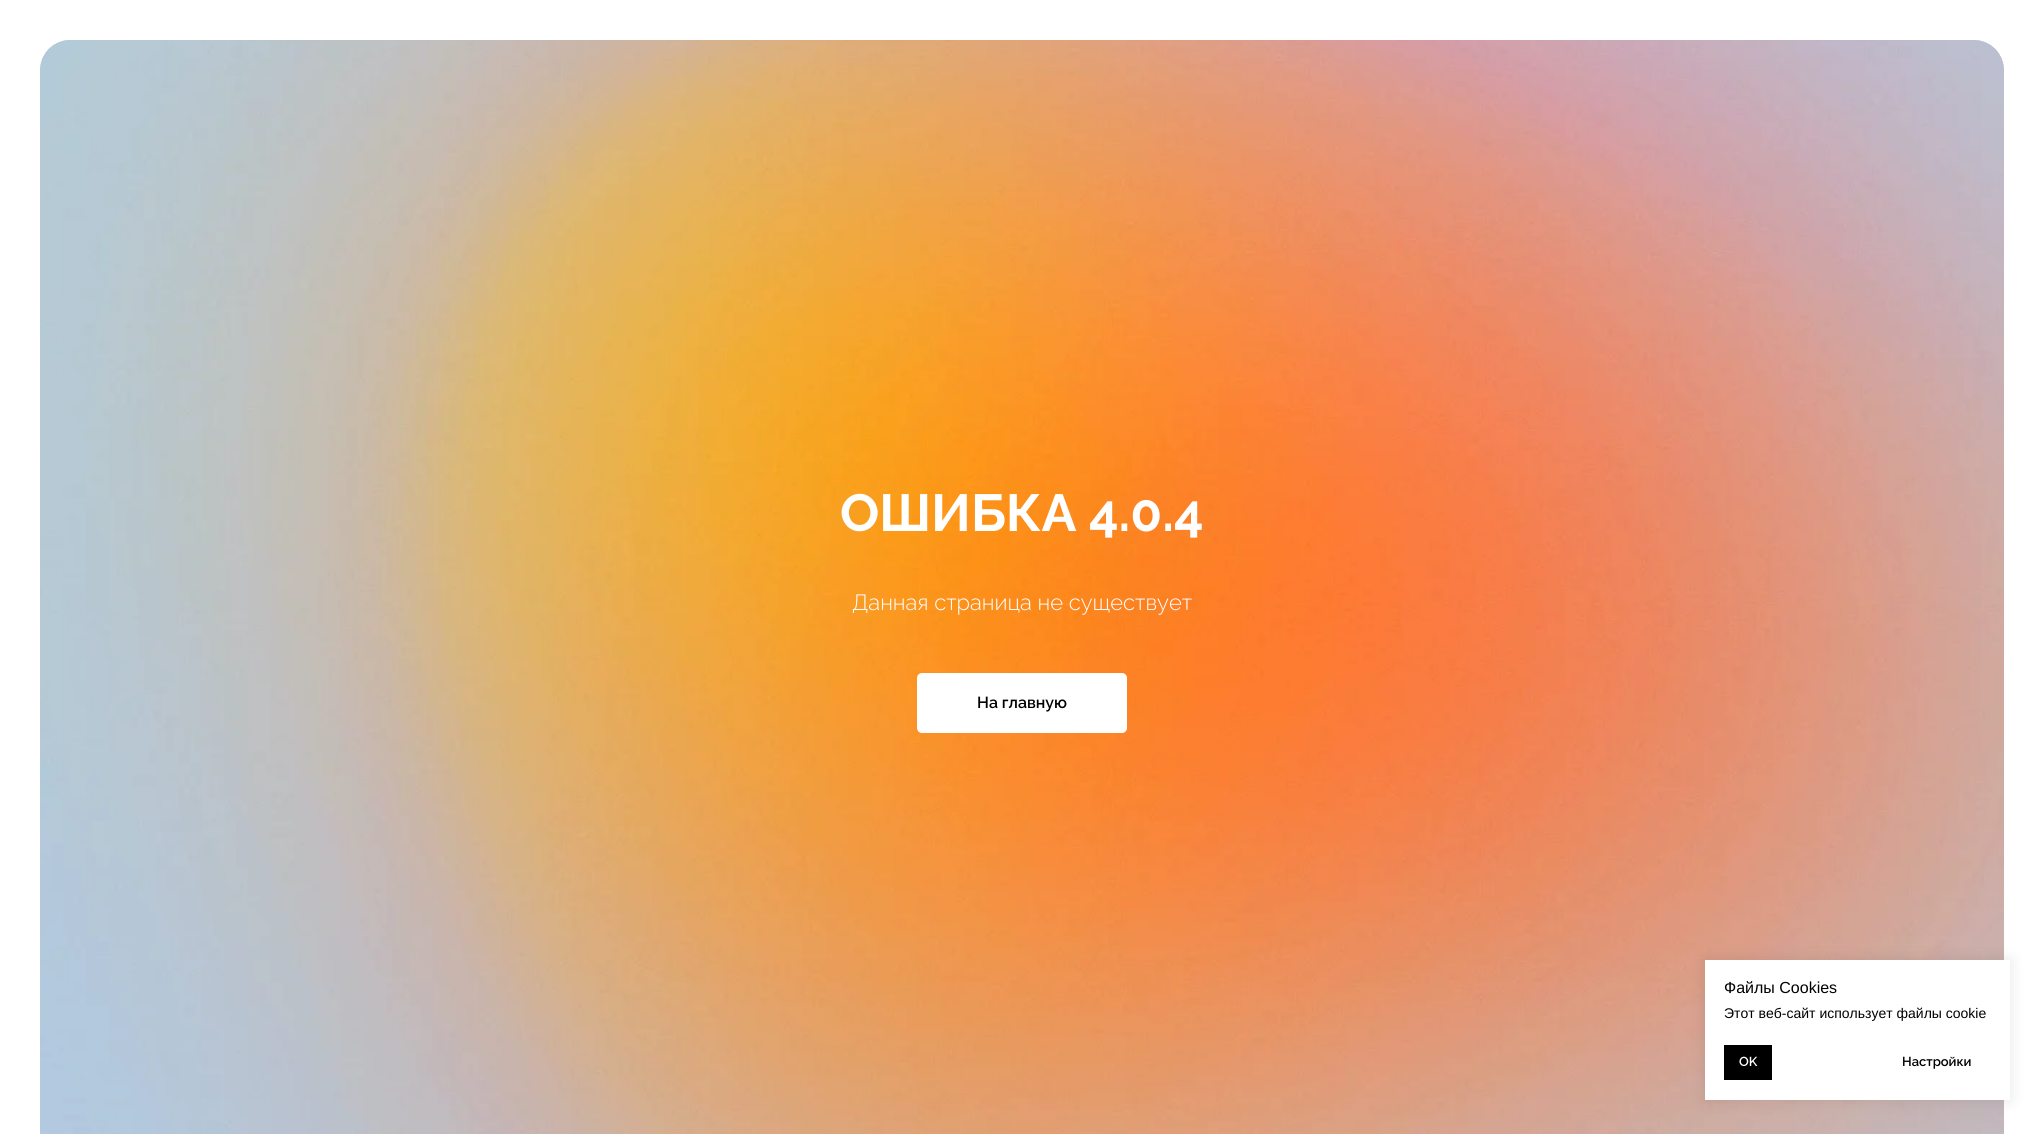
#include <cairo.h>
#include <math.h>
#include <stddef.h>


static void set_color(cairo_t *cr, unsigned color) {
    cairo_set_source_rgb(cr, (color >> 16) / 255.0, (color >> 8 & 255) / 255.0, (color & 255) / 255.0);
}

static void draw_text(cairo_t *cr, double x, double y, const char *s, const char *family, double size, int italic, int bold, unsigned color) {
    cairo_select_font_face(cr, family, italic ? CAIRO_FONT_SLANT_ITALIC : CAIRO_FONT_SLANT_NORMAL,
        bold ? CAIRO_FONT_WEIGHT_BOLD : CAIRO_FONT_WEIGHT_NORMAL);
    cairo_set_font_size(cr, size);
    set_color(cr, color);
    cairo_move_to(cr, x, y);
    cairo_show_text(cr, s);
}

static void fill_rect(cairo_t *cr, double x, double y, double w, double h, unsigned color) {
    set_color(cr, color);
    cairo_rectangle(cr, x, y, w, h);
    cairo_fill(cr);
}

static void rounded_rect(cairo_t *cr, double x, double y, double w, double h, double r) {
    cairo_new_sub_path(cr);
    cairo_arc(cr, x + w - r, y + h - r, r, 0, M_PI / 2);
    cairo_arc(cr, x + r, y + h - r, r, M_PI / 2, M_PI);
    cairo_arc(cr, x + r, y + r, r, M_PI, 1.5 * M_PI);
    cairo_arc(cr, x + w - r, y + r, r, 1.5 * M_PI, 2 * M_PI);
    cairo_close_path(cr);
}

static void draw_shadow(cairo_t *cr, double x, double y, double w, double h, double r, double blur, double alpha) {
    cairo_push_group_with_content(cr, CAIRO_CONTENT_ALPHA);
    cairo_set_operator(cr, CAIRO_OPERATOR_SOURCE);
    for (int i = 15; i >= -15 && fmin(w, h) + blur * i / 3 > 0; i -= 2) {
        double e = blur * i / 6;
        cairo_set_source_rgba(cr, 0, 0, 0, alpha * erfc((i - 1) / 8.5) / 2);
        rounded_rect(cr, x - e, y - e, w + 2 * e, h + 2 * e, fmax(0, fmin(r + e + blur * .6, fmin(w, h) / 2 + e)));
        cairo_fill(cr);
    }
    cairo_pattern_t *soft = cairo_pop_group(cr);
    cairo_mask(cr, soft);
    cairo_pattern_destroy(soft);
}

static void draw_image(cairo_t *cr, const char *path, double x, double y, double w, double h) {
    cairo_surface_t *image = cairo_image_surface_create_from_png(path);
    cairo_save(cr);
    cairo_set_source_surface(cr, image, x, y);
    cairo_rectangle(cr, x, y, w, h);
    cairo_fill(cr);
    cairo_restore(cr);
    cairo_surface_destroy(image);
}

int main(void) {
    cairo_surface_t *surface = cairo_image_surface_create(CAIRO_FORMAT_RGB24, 2044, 1134);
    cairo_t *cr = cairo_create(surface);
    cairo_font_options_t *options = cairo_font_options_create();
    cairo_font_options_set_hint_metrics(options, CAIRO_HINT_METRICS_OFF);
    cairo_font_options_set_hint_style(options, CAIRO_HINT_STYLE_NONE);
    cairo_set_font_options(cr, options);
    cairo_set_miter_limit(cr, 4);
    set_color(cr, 0xFFFFFF);
    cairo_paint(cr);
    draw_image(cr, "assets/img1.png", 40, 40, 1964, 30);
    draw_image(cr, "assets/img2.png", 40, 40, 1964, 1094);
    draw_text(cr, 840, 531, "ОШИБКА 4.0.4", "Raleway", 52, 0, 1, 0xFFFFFF);
    draw_text(cr, 852, 610, "Данная страница не существует", "Raleway Light", 22, 0, 0, 0xFFFFFF);
    rounded_rect(cr, 917, 673, 210, 60, 5);
    cairo_fill(cr);
    draw_text(cr, 977, 708, "На главную", "Raleway SemiBold", 16, 0, 0, 0x000000);
    set_color(cr, 0x000000);
    draw_shadow(cr, 1705, 960, 305, 140, 0, 7.5, 0.1);
    fill_rect(cr, 1705, 960, 305, 140, 0xFFFFFF);
    draw_text(cr, 1724, 993, "Файлы Cookies", "Liberation Sans", 16, 0, 0, 0x000000);
    draw_text(cr, 1724, 1018, "Этот веб-сайт использует файлы cookie", "Liberation Sans", 14, 0, 0, 0x000000);
    fill_rect(cr, 1724, 1045, 48, 35, 0x000000);
    draw_text(cr, 1739, 1066, "OK", "Raleway SemiBold", 13, 0, 0, 0xFFFFFF);
    draw_text(cr, 1902, 1066, "Настройки", "Raleway SemiBold", 13, 0, 0, 0x000000);
    cairo_surface_write_to_png(surface, "output.png");
    cairo_font_options_destroy(options);
    cairo_destroy(cr);
    cairo_surface_destroy(surface);
    return 0;
}
